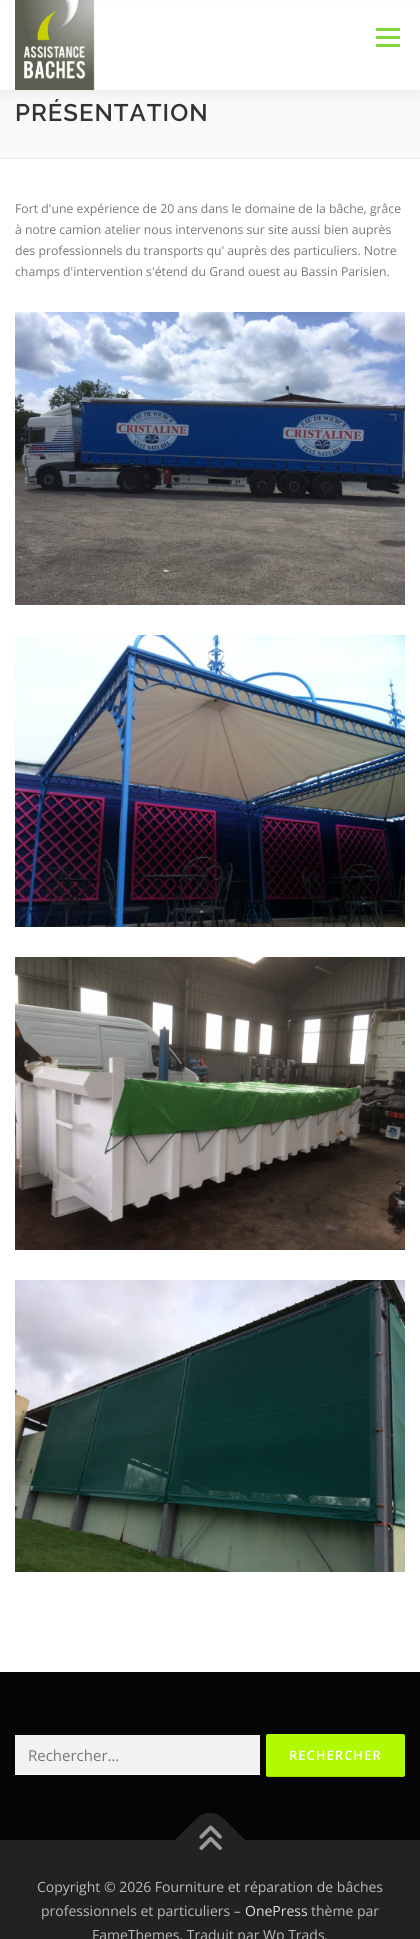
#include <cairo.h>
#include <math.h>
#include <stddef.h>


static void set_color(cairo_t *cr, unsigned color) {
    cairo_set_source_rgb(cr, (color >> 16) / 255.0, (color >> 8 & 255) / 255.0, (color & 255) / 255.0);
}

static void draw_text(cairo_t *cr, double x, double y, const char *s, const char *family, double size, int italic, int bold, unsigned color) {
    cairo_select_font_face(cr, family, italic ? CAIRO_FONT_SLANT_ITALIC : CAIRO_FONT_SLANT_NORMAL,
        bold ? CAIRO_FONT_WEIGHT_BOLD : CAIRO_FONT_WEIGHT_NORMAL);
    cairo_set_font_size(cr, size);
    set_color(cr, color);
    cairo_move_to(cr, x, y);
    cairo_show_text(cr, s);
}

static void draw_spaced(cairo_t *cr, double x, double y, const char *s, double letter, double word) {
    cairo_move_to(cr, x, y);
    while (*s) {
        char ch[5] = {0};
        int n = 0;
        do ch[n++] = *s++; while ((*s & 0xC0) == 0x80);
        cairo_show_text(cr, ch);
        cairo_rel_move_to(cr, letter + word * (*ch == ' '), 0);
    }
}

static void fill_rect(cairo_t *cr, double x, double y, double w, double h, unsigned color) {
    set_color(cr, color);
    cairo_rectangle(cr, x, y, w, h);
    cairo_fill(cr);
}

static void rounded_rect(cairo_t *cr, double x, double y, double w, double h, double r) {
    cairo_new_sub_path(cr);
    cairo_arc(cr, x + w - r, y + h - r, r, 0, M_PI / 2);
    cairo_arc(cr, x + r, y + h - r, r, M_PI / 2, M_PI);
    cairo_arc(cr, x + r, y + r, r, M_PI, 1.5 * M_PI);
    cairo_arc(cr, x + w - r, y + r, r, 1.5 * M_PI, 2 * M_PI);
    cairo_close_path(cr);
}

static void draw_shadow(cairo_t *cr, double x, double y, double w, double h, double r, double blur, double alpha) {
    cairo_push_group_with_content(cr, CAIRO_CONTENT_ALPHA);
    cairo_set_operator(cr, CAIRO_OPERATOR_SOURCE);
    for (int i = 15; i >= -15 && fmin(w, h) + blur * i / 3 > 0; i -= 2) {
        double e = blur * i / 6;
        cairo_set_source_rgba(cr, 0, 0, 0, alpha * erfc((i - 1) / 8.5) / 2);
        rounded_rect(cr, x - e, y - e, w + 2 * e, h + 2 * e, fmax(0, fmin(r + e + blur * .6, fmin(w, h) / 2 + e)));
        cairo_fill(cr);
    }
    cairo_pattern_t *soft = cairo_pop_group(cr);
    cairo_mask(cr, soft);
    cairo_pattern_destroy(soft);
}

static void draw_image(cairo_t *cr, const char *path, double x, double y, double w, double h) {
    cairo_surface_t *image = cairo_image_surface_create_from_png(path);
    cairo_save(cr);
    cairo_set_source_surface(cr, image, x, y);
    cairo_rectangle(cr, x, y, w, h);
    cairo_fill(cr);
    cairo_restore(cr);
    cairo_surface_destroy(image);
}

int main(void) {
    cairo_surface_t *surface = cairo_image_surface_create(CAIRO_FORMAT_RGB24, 420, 1939);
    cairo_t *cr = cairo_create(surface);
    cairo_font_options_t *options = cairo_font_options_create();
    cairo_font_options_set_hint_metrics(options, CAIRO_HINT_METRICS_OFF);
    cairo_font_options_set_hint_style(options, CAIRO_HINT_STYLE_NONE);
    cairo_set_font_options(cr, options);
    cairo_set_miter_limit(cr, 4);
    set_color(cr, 0xFFFFFF);
    cairo_paint(cr);
    fill_rect(cr, 0, 90, 420, 68, 0xF8F9F9);
    set_color(cr, 0x323232);
    draw_shadow(cr, 0, 5, 420, 90, 0, 5, 0.06);
    fill_rect(cr, 0, 1, 420, 89, 0xFFFFFF);
    draw_image(cr, "assets/img1.png", 15, 0, 80, 90);
    fill_rect(cr, 376, 36, 24, 3, 0x81D742);
    fill_rect(cr, 376, 28, 24, 3, 0x81D742);
    fill_rect(cr, 376, 44, 24, 3, 0x81D742);
    fill_rect(cr, 0, 158, 420, 1, 0xE9E9E9);
    cairo_select_font_face(cr, "Raleway SemiBold", CAIRO_FONT_SLANT_NORMAL, CAIRO_FONT_WEIGHT_NORMAL);
    cairo_set_font_size(cr, 24);
    set_color(cr, 0x333333);
    draw_spaced(cr, 15, 121, "PRÉSENTATION", 1, 0);
    draw_text(cr, 15, 213, "Fort d'une expérience de 20 ans dans le domaine de la bâche, grâce", "Open Sans", 12.25, 0, 0, 0x777777);
    draw_text(cr, 15, 234, "à notre camion atelier nous intervenons sur site aussi bien auprès", "Open Sans", 12.25, 0, 0, 0x777777);
    draw_text(cr, 15, 255, "des professionnels du transports qu' auprès des particuliers. Notre", "Open Sans", 12.25, 0, 0, 0x777777);
    draw_text(cr, 15, 276, "champs d'intervention s'étend du Grand ouest au Bassin Parisien.", "Open Sans", 12.25, 0, 0, 0x777777);
    draw_image(cr, "assets/img2.png", 15, 312, 390, 293);
    draw_image(cr, "assets/img3.png", 15, 635, 390, 292);
    draw_image(cr, "assets/img4.png", 15, 957, 390, 293);
    draw_image(cr, "assets/img5.png", 15, 1280, 390, 292);
    fill_rect(cr, 0, 1672, 420, 168, 0x050505);
    fill_rect(cr, 15, 1735, 245, 39, 0xF2F2F2);
    fill_rect(cr, 15, 1774, 245, 1, 0xFFFFFF);
    draw_text(cr, 28, 1761, "Rechercher…", "Open Sans", 15, 0, 0, 0x777777);
    set_color(cr, 0xB2FA00);
    rounded_rect(cr, 266, 1734, 139, 43, 2);
    cairo_fill(cr);
    cairo_set_source_rgba(cr, 0, 0, 0, 0.1);
    cairo_new_path(cr);
    cairo_move_to(cr, 266, 1774);
    cairo_curve_to(cr, 266, 1775, 266, 1777, 268, 1777);
    cairo_line_to(cr, 403, 1777);
    cairo_curve_to(cr, 405, 1777, 405, 1775, 405, 1774);
    cairo_curve_to(cr, 405, 1775, 404, 1776, 403, 1776);
    cairo_line_to(cr, 268, 1776);
    cairo_curve_to(cr, 267, 1776, 266, 1775, 266, 1774);
    cairo_close_path(cr);
    cairo_fill(cr);
    cairo_select_font_face(cr, "Open Sans SemiBold", CAIRO_FONT_SLANT_NORMAL, CAIRO_FONT_WEIGHT_NORMAL);
    cairo_set_font_size(cr, 13);
    set_color(cr, 0xFFFFFF);
    draw_spaced(cr, 289, 1760, "RECHERCHER", 1, 0);
    fill_rect(cr, 0, 1840, 420, 99, 0x222222);
    cairo_new_path(cr);
    cairo_move_to(cr, 175, 1840);
    cairo_line_to(cr, 196, 1819);
    cairo_curve_to(cr, 204, 1811, 216, 1811, 224, 1819);
    cairo_line_to(cr, 245, 1840);
    cairo_line_to(cr, 210, 1876);
    cairo_close_path(cr);
    cairo_fill(cr);
    draw_image(cr, "assets/img6.png", 199, 1825, 23, 25);
    draw_text(cr, 37, 1892, "Copyright © 2026 Fourniture et réparation de bâches", "Open Sans", 14, 0, 0, 0xBBBBBB);
    draw_text(cr, 41, 1916, "professionnels et particuliers –", "Open Sans", 14, 0, 0, 0xBBBBBB);
    draw_text(cr, 245, 1916, "OnePress", "Open Sans", 14, 0, 0, 0xDDDDDD);
    draw_text(cr, 311, 1916, "thème par", "Open Sans", 14, 0, 0, 0xBBBBBB);
    draw_text(cr, 92, 1940, "FameThemes. Traduit par Wp Trads.", "Open Sans", 14, 0, 0, 0xBBBBBB);
    cairo_surface_write_to_png(surface, "output.png");
    cairo_font_options_destroy(options);
    cairo_destroy(cr);
    cairo_surface_destroy(surface);
    return 0;
}
